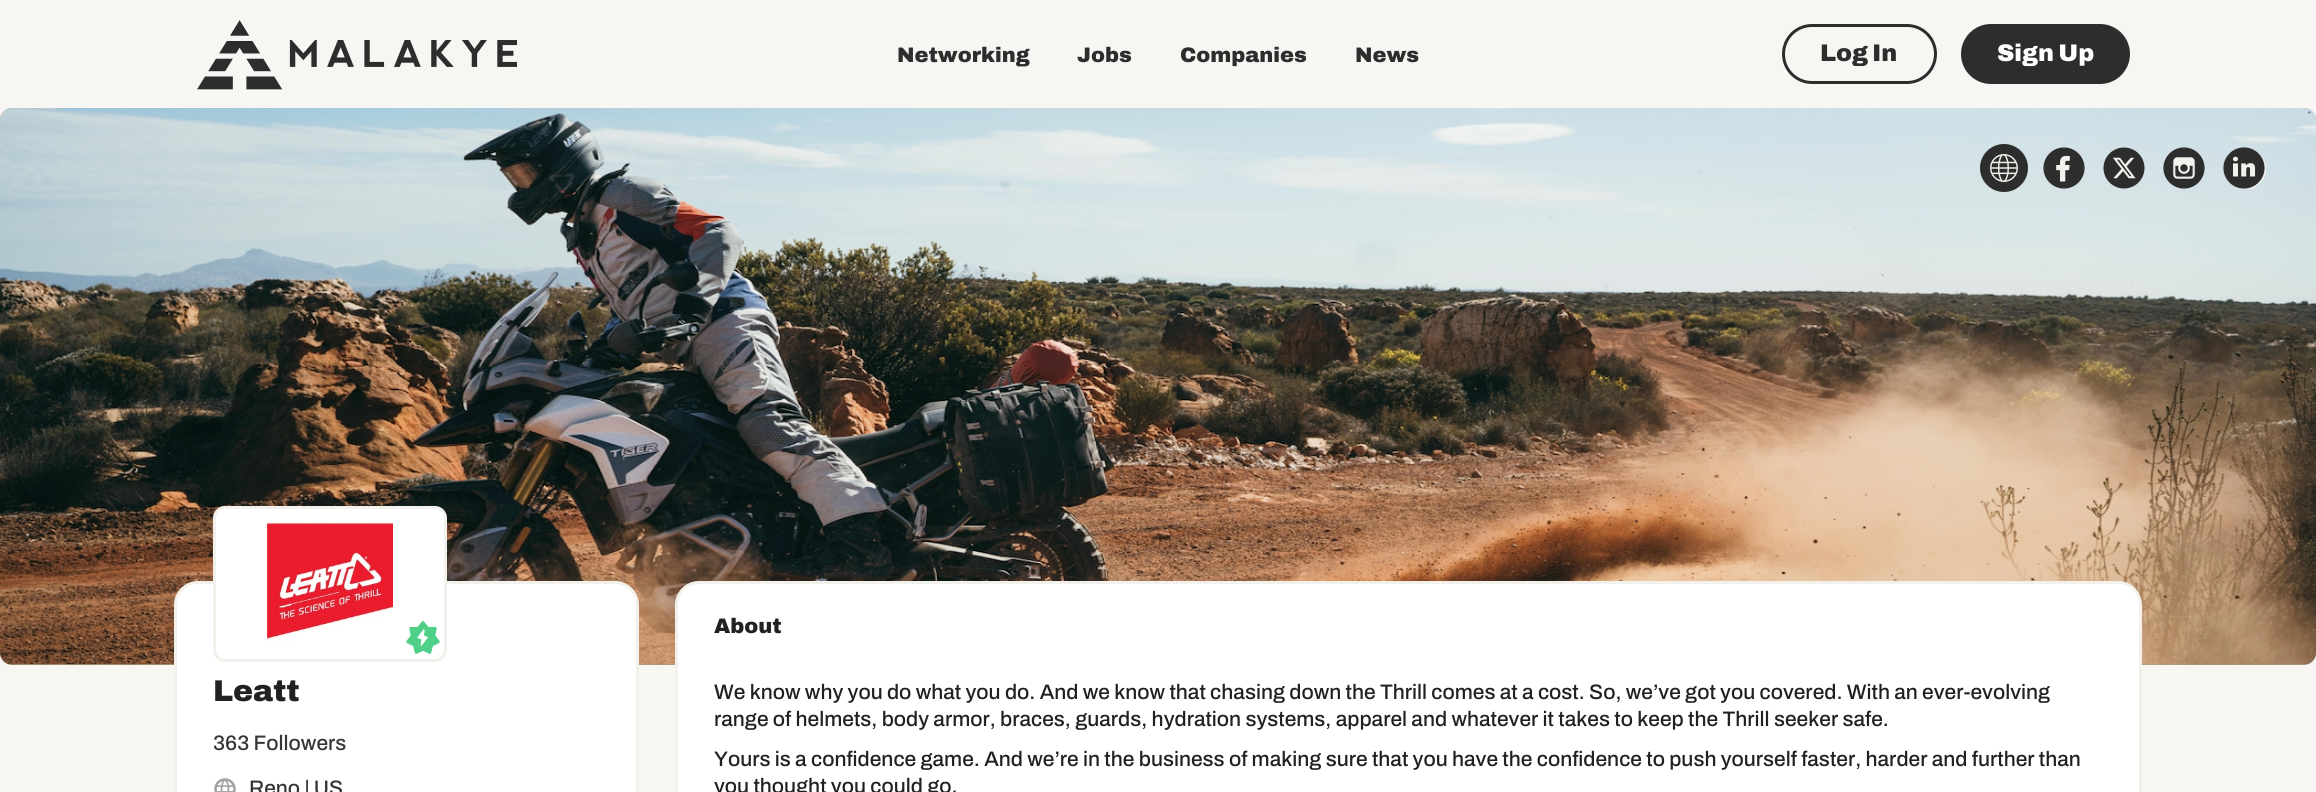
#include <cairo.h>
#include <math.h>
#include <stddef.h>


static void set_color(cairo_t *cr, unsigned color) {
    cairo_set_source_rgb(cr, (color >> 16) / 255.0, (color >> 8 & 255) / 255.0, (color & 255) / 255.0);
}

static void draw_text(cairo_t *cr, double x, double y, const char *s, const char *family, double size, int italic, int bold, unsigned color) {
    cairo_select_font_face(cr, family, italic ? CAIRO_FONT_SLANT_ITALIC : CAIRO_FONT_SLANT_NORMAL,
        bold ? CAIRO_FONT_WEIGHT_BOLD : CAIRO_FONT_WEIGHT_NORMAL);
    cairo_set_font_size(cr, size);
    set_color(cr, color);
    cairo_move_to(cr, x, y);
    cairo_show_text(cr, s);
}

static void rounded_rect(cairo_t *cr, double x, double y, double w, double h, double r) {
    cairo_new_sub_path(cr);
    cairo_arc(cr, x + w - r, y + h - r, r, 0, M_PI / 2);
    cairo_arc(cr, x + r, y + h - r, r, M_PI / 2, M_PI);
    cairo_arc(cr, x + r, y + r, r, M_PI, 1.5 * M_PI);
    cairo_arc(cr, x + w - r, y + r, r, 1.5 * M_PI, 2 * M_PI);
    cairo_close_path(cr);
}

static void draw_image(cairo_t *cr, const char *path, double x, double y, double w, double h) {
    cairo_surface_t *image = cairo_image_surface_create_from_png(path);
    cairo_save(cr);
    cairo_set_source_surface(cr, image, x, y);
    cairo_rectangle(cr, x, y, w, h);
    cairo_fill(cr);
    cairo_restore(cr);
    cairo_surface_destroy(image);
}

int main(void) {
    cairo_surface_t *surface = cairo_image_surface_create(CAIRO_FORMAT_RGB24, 2316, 792);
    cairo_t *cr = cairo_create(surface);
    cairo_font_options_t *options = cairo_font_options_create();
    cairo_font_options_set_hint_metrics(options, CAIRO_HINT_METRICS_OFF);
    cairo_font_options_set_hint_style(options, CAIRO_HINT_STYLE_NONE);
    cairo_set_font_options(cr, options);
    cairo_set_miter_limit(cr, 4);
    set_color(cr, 0xF7F6F3);
    cairo_paint(cr);
    draw_image(cr, "assets/img1.png", 197, 20, 321, 70);
    draw_text(cr, 897, 62, "Networking", "Archivo SemiBold", 21, 0, 0, 0x2D2D2D);
    draw_text(cr, 1077, 62, "Jobs", "Archivo SemiBold", 21, 0, 0, 0x2D2D2D);
    draw_text(cr, 1180, 62, "Companies", "Archivo SemiBold", 21, 0, 0, 0x2D2D2D);
    draw_text(cr, 1355, 62, "News", "Archivo SemiBold", 21, 0, 0, 0x2D2D2D);
    rounded_rect(cr, 1783.5, 25.5, 152, 57, 28.5);
    cairo_set_line_width(cr, 3);
    cairo_stroke(cr);
    draw_text(cr, 1820, 61, "Log In", "Archivo SemiBold", 24, 0, 0, 0x2D2D2D);
    rounded_rect(cr, 1961, 24, 169, 60, 30);
    cairo_fill(cr);
    draw_text(cr, 1997, 61, "Sign Up", "Archivo SemiBold", 24, 0, 0, 0xFFFFFF);
    set_color(cr, 0xA59D82);
    rounded_rect(cr, 0, 108, 2316, 557, 12);
    cairo_fill(cr);
    draw_image(cr, "assets/img2.png", 0, 108, 2316, 557);
    draw_image(cr, "assets/img3.png", 1980, 144, 48, 48);
    draw_image(cr, "assets/img4.png", 2043, 147, 42, 42);
    draw_image(cr, "assets/img5.png", 2103, 147, 42, 42);
    draw_image(cr, "assets/img6.png", 2163, 147, 42, 42);
    draw_image(cr, "assets/img7.png", 2223, 147, 43, 43);
    set_color(cr, 0xFFFFFF);
    rounded_rect(cr, 175.5, 582.5, 462, 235, 22.5);
    cairo_fill_preserve(cr);
    set_color(cr, 0xF3F1EB);
    cairo_stroke(cr);
    draw_text(cr, 213, 701, "Leatt", "Archivo SemiBold", 30, 0, 0, 0x212121);
    set_color(cr, 0xFFFFFF);
    rounded_rect(cr, 214.5, 507.5, 231, 153, 10.5);
    cairo_fill_preserve(cr);
    set_color(cr, 0xF3F1EB);
    cairo_stroke(cr);
    draw_image(cr, "assets/img8.png", 267, 522, 126, 120);
    draw_image(cr, "assets/img9.png", 406, 621, 34, 33);
    draw_text(cr, 213, 750, "363 Followers", "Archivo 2 SemiBold", 21, 0, 0, 0x363636);
    draw_image(cr, "assets/img10.png", 214, 778, 22, 14);
    draw_text(cr, 249, 795, "Reno | US", "Archivo 2 SemiBold", 21, 0, 0, 0x363636);
    set_color(cr, 0xFFFFFF);
    rounded_rect(cr, 676.5, 582.5, 1464, 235, 22.5);
    cairo_fill_preserve(cr);
    set_color(cr, 0xF3F1EB);
    cairo_stroke(cr);
    draw_text(cr, 714, 633, "About", "Archivo SemiBold", 21, 0, 0, 0x212121);
    draw_text(cr, 714, 699, "We know why you do what you do. And we know that chasing down the Thrill comes at a cost. So, we’ve got you covered. With an ever-evolving", "Archivo 2 SemiBold", 21, 0, 0, 0x212121);
    draw_text(cr, 714, 726, "range of helmets, body armor, braces, guards, hydration systems, apparel and whatever it takes to keep the Thrill seeker safe.", "Archivo 2 SemiBold", 21, 0, 0, 0x212121);
    draw_text(cr, 714, 766, "Yours is a confidence game. And we’re in the business of making sure that you have the confidence to push yourself faster, harder and further than", "Archivo 2 SemiBold", 21, 0, 0, 0x212121);
    draw_text(cr, 714, 793, "you thought you could go.", "Archivo 2 SemiBold", 21, 0, 0, 0x212121);
    cairo_surface_write_to_png(surface, "output.png");
    cairo_font_options_destroy(options);
    cairo_destroy(cr);
    cairo_surface_destroy(surface);
    return 0;
}
